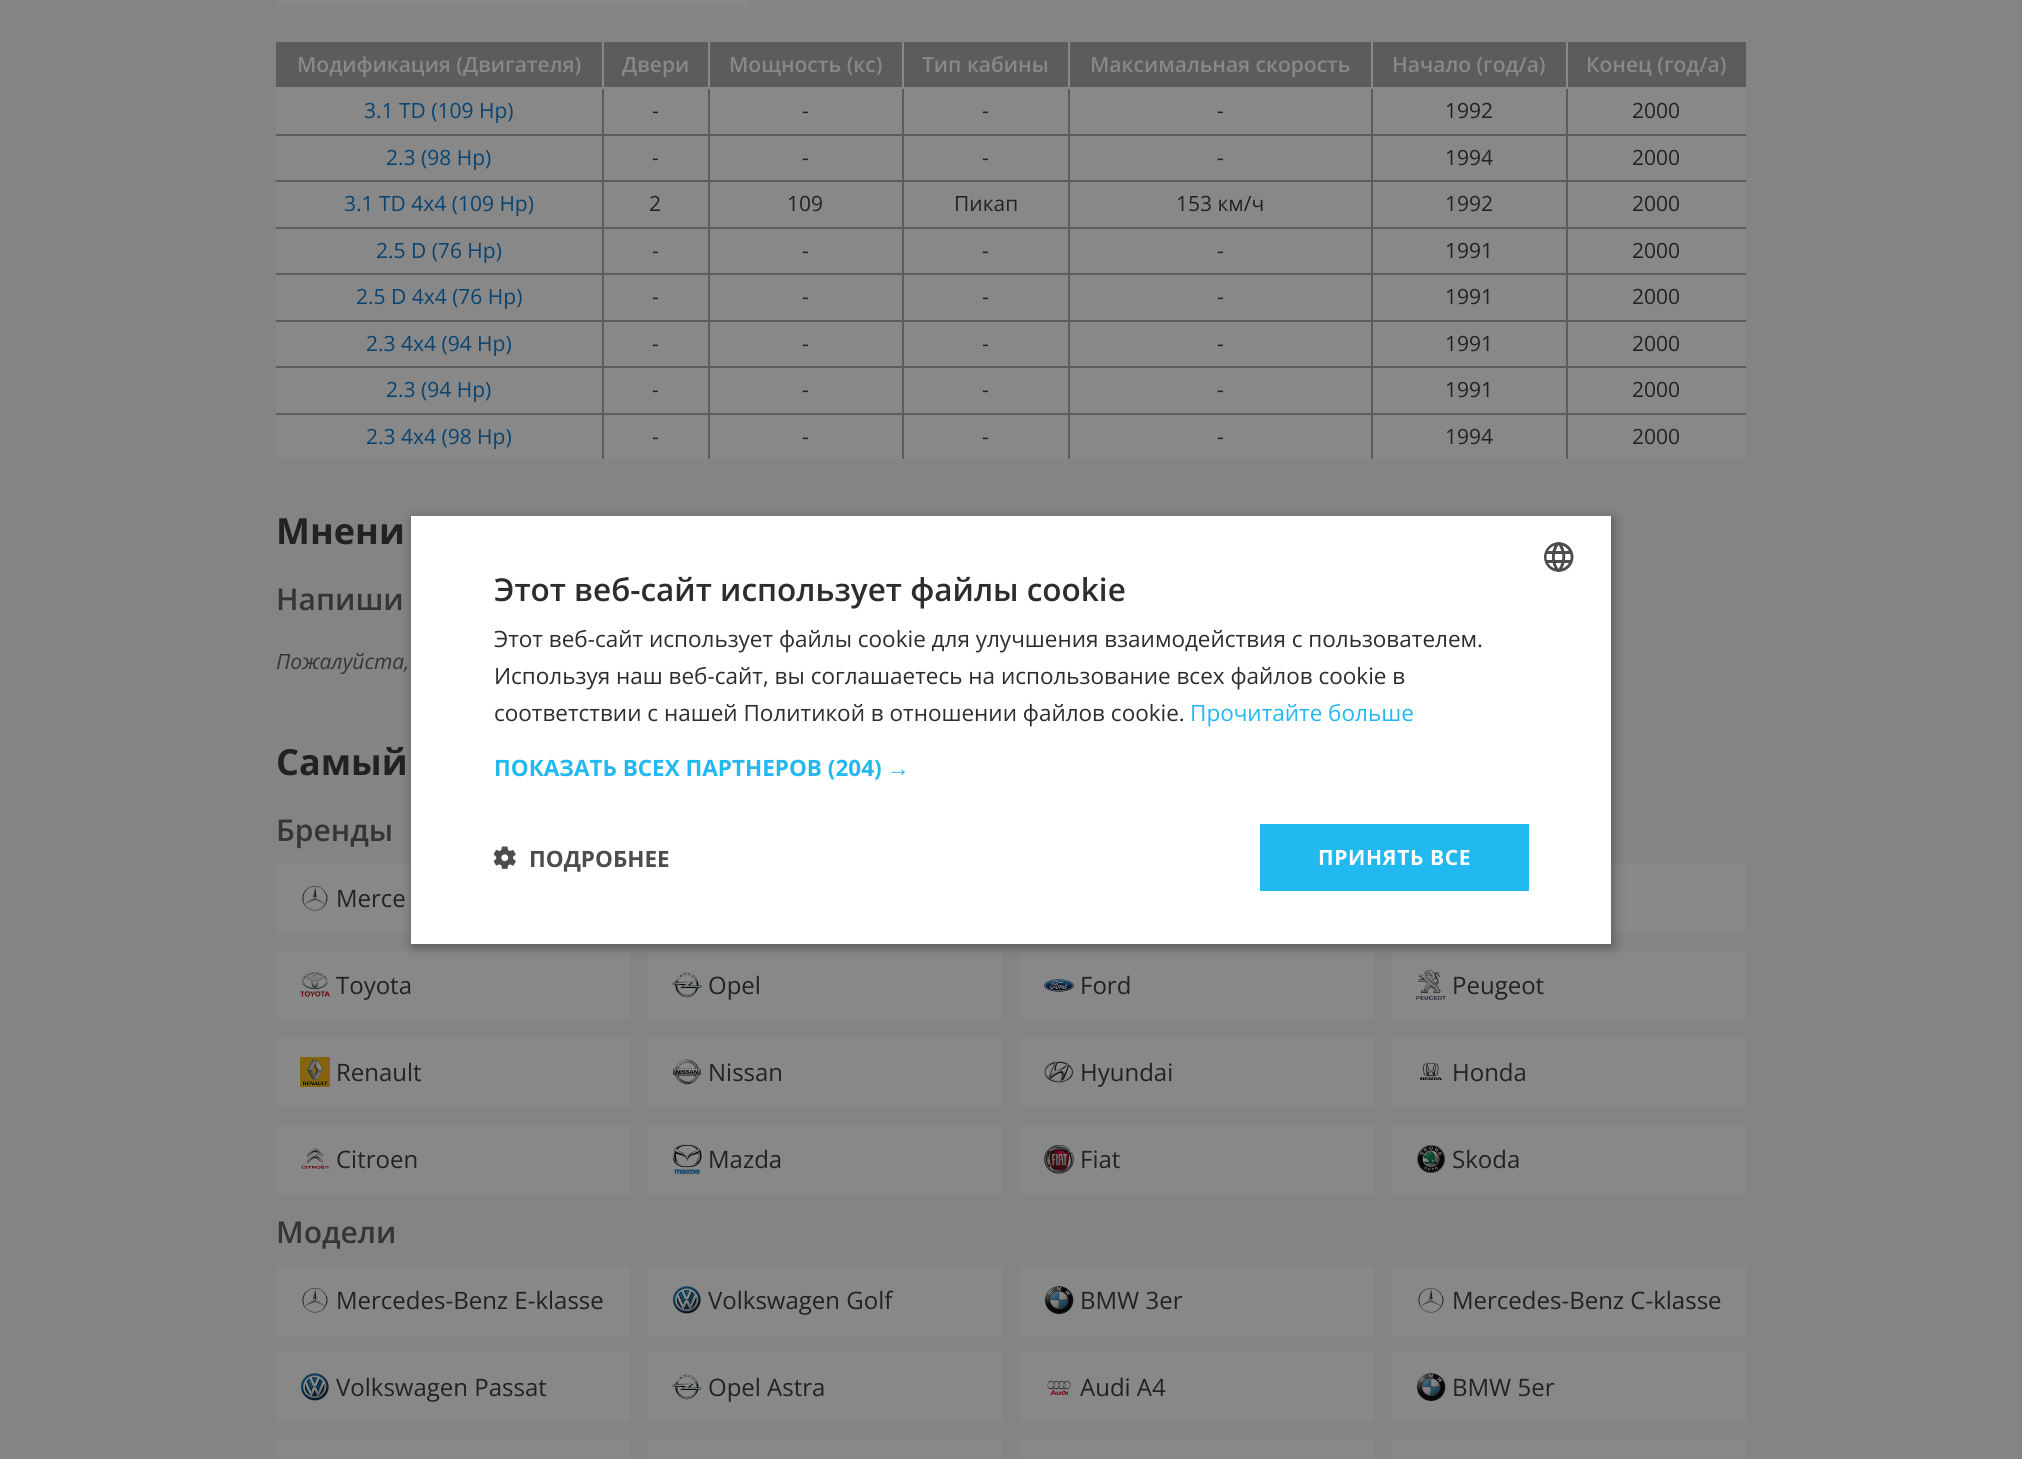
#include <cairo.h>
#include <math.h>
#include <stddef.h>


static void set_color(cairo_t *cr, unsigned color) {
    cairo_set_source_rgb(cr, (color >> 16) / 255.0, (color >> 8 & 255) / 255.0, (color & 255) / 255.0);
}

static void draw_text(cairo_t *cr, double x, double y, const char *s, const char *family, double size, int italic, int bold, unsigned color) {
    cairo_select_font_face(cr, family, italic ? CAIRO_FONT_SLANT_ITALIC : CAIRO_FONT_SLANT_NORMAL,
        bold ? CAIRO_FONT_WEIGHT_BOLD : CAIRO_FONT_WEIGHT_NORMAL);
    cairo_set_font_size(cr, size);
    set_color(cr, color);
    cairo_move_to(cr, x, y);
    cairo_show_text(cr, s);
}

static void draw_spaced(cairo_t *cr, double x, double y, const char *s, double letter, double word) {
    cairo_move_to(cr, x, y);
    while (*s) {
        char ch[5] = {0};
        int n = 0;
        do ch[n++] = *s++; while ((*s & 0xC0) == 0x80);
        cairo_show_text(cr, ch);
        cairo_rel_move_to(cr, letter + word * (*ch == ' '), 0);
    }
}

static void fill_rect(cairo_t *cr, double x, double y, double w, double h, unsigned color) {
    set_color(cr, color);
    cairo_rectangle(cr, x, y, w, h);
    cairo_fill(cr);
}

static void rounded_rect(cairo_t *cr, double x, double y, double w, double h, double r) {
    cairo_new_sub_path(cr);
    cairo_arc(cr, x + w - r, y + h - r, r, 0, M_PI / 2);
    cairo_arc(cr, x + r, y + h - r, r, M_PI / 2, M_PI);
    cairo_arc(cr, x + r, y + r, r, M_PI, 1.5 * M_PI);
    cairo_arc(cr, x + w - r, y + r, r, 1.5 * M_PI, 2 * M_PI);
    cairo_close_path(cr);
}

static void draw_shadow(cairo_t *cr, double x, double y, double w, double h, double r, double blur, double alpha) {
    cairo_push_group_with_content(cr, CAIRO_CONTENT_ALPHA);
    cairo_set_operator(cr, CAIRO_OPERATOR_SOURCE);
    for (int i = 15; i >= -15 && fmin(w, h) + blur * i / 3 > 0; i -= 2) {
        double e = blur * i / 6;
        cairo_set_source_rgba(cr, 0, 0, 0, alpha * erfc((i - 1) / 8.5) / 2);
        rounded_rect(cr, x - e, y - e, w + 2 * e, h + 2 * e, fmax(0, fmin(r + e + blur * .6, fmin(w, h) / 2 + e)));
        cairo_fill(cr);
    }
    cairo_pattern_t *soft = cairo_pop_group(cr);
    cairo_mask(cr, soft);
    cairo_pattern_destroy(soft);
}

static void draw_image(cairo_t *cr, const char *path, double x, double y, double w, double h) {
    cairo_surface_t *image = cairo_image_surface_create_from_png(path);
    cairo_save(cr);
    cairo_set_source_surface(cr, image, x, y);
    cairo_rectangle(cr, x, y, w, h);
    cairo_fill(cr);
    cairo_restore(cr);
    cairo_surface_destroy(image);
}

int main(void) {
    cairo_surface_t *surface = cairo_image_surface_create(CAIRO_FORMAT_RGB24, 2022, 1459);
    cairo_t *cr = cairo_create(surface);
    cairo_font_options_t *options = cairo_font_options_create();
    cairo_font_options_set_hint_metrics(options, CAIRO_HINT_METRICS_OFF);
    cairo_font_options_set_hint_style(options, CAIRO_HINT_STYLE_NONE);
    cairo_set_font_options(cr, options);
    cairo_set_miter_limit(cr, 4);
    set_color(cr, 0x848484);
    cairo_paint(cr);
    fill_rect(cr, 276, 0, 473, 6, 0x888888);
    fill_rect(cr, 276, 42, 326, 45, 0x5C5C5C);
    fill_rect(cr, 276, 134, 1470, 2, 0x5C5C5C);
    fill_rect(cr, 276, 180, 1470, 2, 0x5C5C5C);
    fill_rect(cr, 276, 227, 1470, 2, 0x5C5C5C);
    fill_rect(cr, 276, 273, 1470, 2, 0x5C5C5C);
    fill_rect(cr, 276, 320, 1470, 2, 0x5C5C5C);
    fill_rect(cr, 276, 366, 1470, 2, 0x5C5C5C);
    fill_rect(cr, 276, 413, 1470, 2, 0x5C5C5C);
    fill_rect(cr, 1566, 87, 2, 372, 0x5C5C5C);
    fill_rect(cr, 1566, 87, 180, 2, 0x888888);
    fill_rect(cr, 1566, 42, 2, 47, 0x888888);
    fill_rect(cr, 1371, 87, 2, 372, 0x5C5C5C);
    fill_rect(cr, 1371, 87, 197, 2, 0x888888);
    fill_rect(cr, 1371, 42, 2, 47, 0x888888);
    fill_rect(cr, 1068, 87, 2, 372, 0x5C5C5C);
    fill_rect(cr, 1068, 87, 305, 2, 0x888888);
    fill_rect(cr, 1068, 42, 2, 47, 0x888888);
    fill_rect(cr, 902, 87, 2, 372, 0x5C5C5C);
    fill_rect(cr, 902, 87, 168, 2, 0x888888);
    fill_rect(cr, 902, 42, 2, 47, 0x888888);
    fill_rect(cr, 708, 87, 2, 372, 0x5C5C5C);
    fill_rect(cr, 708, 87, 195, 2, 0x888888);
    fill_rect(cr, 708, 42, 2, 47, 0x888888);
    fill_rect(cr, 602, 87, 2, 372, 0x5C5C5C);
    fill_rect(cr, 602, 87, 108, 2, 0x888888);
    fill_rect(cr, 602, 42, 2, 47, 0x888888);
    fill_rect(cr, 276, 87, 327, 2, 0x888888);
    draw_text(cr, 297, 72, "Модификация (Двигателя)", "Open Sans SemiBold", 21, 0, 0, 0x888888);
    fill_rect(cr, 604, 42, 104, 45, 0x5C5C5C);
    draw_text(cr, 622, 72, "Двери", "Open Sans SemiBold", 21, 0, 0, 0x888888);
    fill_rect(cr, 710, 42, 192, 45, 0x5C5C5C);
    draw_text(cr, 729, 72, "Мощность (кс)", "Open Sans SemiBold", 21, 0, 0, 0x888888);
    fill_rect(cr, 904, 42, 164, 45, 0x5C5C5C);
    draw_text(cr, 922, 72, "Тип кабины", "Open Sans SemiBold", 21, 0, 0, 0x888888);
    fill_rect(cr, 1070, 42, 301, 45, 0x5C5C5C);
    draw_text(cr, 1090, 72, "Максимальная скорость", "Open Sans SemiBold", 21, 0, 0, 0x888888);
    fill_rect(cr, 1373, 42, 193, 45, 0x5C5C5C);
    draw_text(cr, 1392, 72, "Начало (год/а)", "Open Sans SemiBold", 21, 0, 0, 0x888888);
    fill_rect(cr, 1568, 42, 178, 45, 0x5C5C5C);
    draw_text(cr, 1586, 72, "Конец (год/а)", "Open Sans SemiBold", 21, 0, 0, 0x888888);
    fill_rect(cr, 276, 89, 326, 45, 0x888888);
    draw_text(cr, 364, 118, "3.1 TD (109 Hp)", "Open Sans", 21, 0, 0, 0x094370);
    fill_rect(cr, 604, 89, 104, 45, 0x888888);
    draw_text(cr, 652, 118, "-", "Open Sans", 21, 0, 0, 0x222222);
    fill_rect(cr, 710, 89, 192, 45, 0x888888);
    draw_text(cr, 802, 118, "-", "Open Sans", 21, 0, 0, 0x222222);
    fill_rect(cr, 904, 89, 164, 45, 0x888888);
    draw_text(cr, 982, 118, "-", "Open Sans", 21, 0, 0, 0x222222);
    fill_rect(cr, 1070, 89, 301, 45, 0x888888);
    draw_text(cr, 1217, 118, "-", "Open Sans", 21, 0, 0, 0x222222);
    fill_rect(cr, 1373, 89, 193, 45, 0x888888);
    draw_text(cr, 1445, 118, "1992", "Open Sans", 21, 0, 0, 0x222222);
    fill_rect(cr, 1568, 89, 178, 45, 0x888888);
    draw_text(cr, 1632, 118, "2000", "Open Sans", 21, 0, 0, 0x222222);
    fill_rect(cr, 276, 136, 326, 44, 0x888888);
    draw_text(cr, 386, 165, "2.3 (98 Hp)", "Open Sans", 21, 0, 0, 0x094370);
    fill_rect(cr, 604, 136, 104, 44, 0x888888);
    draw_text(cr, 652, 165, "-", "Open Sans", 21, 0, 0, 0x222222);
    fill_rect(cr, 710, 136, 192, 44, 0x888888);
    draw_text(cr, 802, 165, "-", "Open Sans", 21, 0, 0, 0x222222);
    fill_rect(cr, 904, 136, 164, 44, 0x888888);
    draw_text(cr, 982, 165, "-", "Open Sans", 21, 0, 0, 0x222222);
    fill_rect(cr, 1070, 136, 301, 44, 0x888888);
    draw_text(cr, 1217, 165, "-", "Open Sans", 21, 0, 0, 0x222222);
    fill_rect(cr, 1373, 136, 193, 44, 0x888888);
    draw_text(cr, 1445, 165, "1994", "Open Sans", 21, 0, 0, 0x222222);
    fill_rect(cr, 1568, 136, 178, 44, 0x888888);
    draw_text(cr, 1632, 165, "2000", "Open Sans", 21, 0, 0, 0x222222);
    fill_rect(cr, 276, 182, 326, 45, 0x888888);
    draw_text(cr, 344, 211, "3.1 TD 4x4 (109 Hp)", "Open Sans", 21, 0, 0, 0x094370);
    fill_rect(cr, 604, 182, 104, 45, 0x888888);
    draw_text(cr, 649, 211, "2", "Open Sans", 21, 0, 0, 0x222222);
    fill_rect(cr, 710, 182, 192, 45, 0x888888);
    draw_text(cr, 787, 211, "109", "Open Sans", 21, 0, 0, 0x222222);
    fill_rect(cr, 904, 182, 164, 45, 0x888888);
    draw_text(cr, 954, 211, "Пикап", "Open Sans", 21, 0, 0, 0x222222);
    fill_rect(cr, 1070, 182, 301, 45, 0x888888);
    draw_text(cr, 1176, 211, "153 км/ч", "Open Sans", 21, 0, 0, 0x222222);
    fill_rect(cr, 1373, 182, 193, 45, 0x888888);
    draw_text(cr, 1445, 211, "1992", "Open Sans", 21, 0, 0, 0x222222);
    fill_rect(cr, 1568, 182, 178, 45, 0x888888);
    draw_text(cr, 1632, 211, "2000", "Open Sans", 21, 0, 0, 0x222222);
    fill_rect(cr, 276, 229, 326, 44, 0x888888);
    draw_text(cr, 376, 258, "2.5 D (76 Hp)", "Open Sans", 21, 0, 0, 0x094370);
    fill_rect(cr, 604, 229, 104, 44, 0x888888);
    draw_text(cr, 652, 258, "-", "Open Sans", 21, 0, 0, 0x222222);
    fill_rect(cr, 710, 229, 192, 44, 0x888888);
    draw_text(cr, 802, 258, "-", "Open Sans", 21, 0, 0, 0x222222);
    fill_rect(cr, 904, 229, 164, 44, 0x888888);
    draw_text(cr, 982, 258, "-", "Open Sans", 21, 0, 0, 0x222222);
    fill_rect(cr, 1070, 229, 301, 44, 0x888888);
    draw_text(cr, 1217, 258, "-", "Open Sans", 21, 0, 0, 0x222222);
    fill_rect(cr, 1373, 229, 193, 44, 0x888888);
    draw_text(cr, 1445, 258, "1991", "Open Sans", 21, 0, 0, 0x222222);
    fill_rect(cr, 1568, 229, 178, 44, 0x888888);
    draw_text(cr, 1632, 258, "2000", "Open Sans", 21, 0, 0, 0x222222);
    fill_rect(cr, 276, 275, 326, 45, 0x888888);
    draw_text(cr, 356, 304, "2.5 D 4x4 (76 Hp)", "Open Sans", 21, 0, 0, 0x094370);
    fill_rect(cr, 604, 275, 104, 45, 0x888888);
    draw_text(cr, 652, 304, "-", "Open Sans", 21, 0, 0, 0x222222);
    fill_rect(cr, 710, 275, 192, 45, 0x888888);
    draw_text(cr, 802, 304, "-", "Open Sans", 21, 0, 0, 0x222222);
    fill_rect(cr, 904, 275, 164, 45, 0x888888);
    draw_text(cr, 982, 304, "-", "Open Sans", 21, 0, 0, 0x222222);
    fill_rect(cr, 1070, 275, 301, 45, 0x888888);
    draw_text(cr, 1217, 304, "-", "Open Sans", 21, 0, 0, 0x222222);
    fill_rect(cr, 1373, 275, 193, 45, 0x888888);
    draw_text(cr, 1445, 304, "1991", "Open Sans", 21, 0, 0, 0x222222);
    fill_rect(cr, 1568, 275, 178, 45, 0x888888);
    draw_text(cr, 1632, 304, "2000", "Open Sans", 21, 0, 0, 0x222222);
    fill_rect(cr, 276, 322, 326, 44, 0x888888);
    draw_text(cr, 366, 351, "2.3 4x4 (94 Hp)", "Open Sans", 21, 0, 0, 0x094370);
    fill_rect(cr, 604, 322, 104, 44, 0x888888);
    draw_text(cr, 652, 351, "-", "Open Sans", 21, 0, 0, 0x222222);
    fill_rect(cr, 710, 322, 192, 44, 0x888888);
    draw_text(cr, 802, 351, "-", "Open Sans", 21, 0, 0, 0x222222);
    fill_rect(cr, 904, 322, 164, 44, 0x888888);
    draw_text(cr, 982, 351, "-", "Open Sans", 21, 0, 0, 0x222222);
    fill_rect(cr, 1070, 322, 301, 44, 0x888888);
    draw_text(cr, 1217, 351, "-", "Open Sans", 21, 0, 0, 0x222222);
    fill_rect(cr, 1373, 322, 193, 44, 0x888888);
    draw_text(cr, 1445, 351, "1991", "Open Sans", 21, 0, 0, 0x222222);
    fill_rect(cr, 1568, 322, 178, 44, 0x888888);
    draw_text(cr, 1632, 351, "2000", "Open Sans", 21, 0, 0, 0x222222);
    fill_rect(cr, 276, 368, 326, 45, 0x888888);
    draw_text(cr, 386, 397, "2.3 (94 Hp)", "Open Sans", 21, 0, 0, 0x094370);
    fill_rect(cr, 604, 368, 104, 45, 0x888888);
    draw_text(cr, 652, 397, "-", "Open Sans", 21, 0, 0, 0x222222);
    fill_rect(cr, 710, 368, 192, 45, 0x888888);
    draw_text(cr, 802, 397, "-", "Open Sans", 21, 0, 0, 0x222222);
    fill_rect(cr, 904, 368, 164, 45, 0x888888);
    draw_text(cr, 982, 397, "-", "Open Sans", 21, 0, 0, 0x222222);
    fill_rect(cr, 1070, 368, 301, 45, 0x888888);
    draw_text(cr, 1217, 397, "-", "Open Sans", 21, 0, 0, 0x222222);
    fill_rect(cr, 1373, 368, 193, 45, 0x888888);
    draw_text(cr, 1445, 397, "1991", "Open Sans", 21, 0, 0, 0x222222);
    fill_rect(cr, 1568, 368, 178, 45, 0x888888);
    draw_text(cr, 1632, 397, "2000", "Open Sans", 21, 0, 0, 0x222222);
    fill_rect(cr, 276, 415, 326, 44, 0x888888);
    draw_text(cr, 366, 444, "2.3 4x4 (98 Hp)", "Open Sans", 21, 0, 0, 0x094370);
    fill_rect(cr, 604, 415, 104, 44, 0x888888);
    draw_text(cr, 652, 444, "-", "Open Sans", 21, 0, 0, 0x222222);
    fill_rect(cr, 710, 415, 192, 44, 0x888888);
    draw_text(cr, 802, 444, "-", "Open Sans", 21, 0, 0, 0x222222);
    fill_rect(cr, 904, 415, 164, 44, 0x888888);
    draw_text(cr, 982, 444, "-", "Open Sans", 21, 0, 0, 0x222222);
    fill_rect(cr, 1070, 415, 301, 44, 0x888888);
    draw_text(cr, 1217, 444, "-", "Open Sans", 21, 0, 0, 0x222222);
    fill_rect(cr, 1373, 415, 193, 44, 0x888888);
    draw_text(cr, 1445, 444, "1994", "Open Sans", 21, 0, 0, 0x222222);
    fill_rect(cr, 1568, 415, 178, 44, 0x888888);
    draw_text(cr, 1632, 444, "2000", "Open Sans", 21, 0, 0, 0x222222);
    draw_text(cr, 276, 544, "Мнени", "Open Sans", 36, 0, 1, 0x222222);
    draw_text(cr, 276, 610, "Напиши", "Open Sans SemiBold", 30, 0, 0, 0x353535);
    draw_text(cr, 276, 669, "Пожалуйста,", "Open Sans", 21, 1, 0, 0x353535);
    fill_rect(cr, 276, 864, 135, 69, 0x888888);
    fill_rect(cr, 1611, 864, 135, 69, 0x888888);
    fill_rect(cr, 276, 951, 354, 69, 0x888888);
    fill_rect(cr, 648, 951, 354, 69, 0x888888);
    fill_rect(cr, 1020, 951, 354, 69, 0x888888);
    fill_rect(cr, 1392, 951, 354, 69, 0x888888);
    set_color(cr, 0x000000);
    draw_shadow(cr, 413, 519, 1200, 428, 0, 6, 0.35);
    fill_rect(cr, 411, 516, 1200, 428, 0xFFFFFF);
    draw_image(cr, "assets/img1.png", 1544, 542, 30, 30);
    draw_text(cr, 494, 601, "Этот веб-сайт использует файлы cookie", "Open Sans SemiBold", 31.5, 0, 0, 0x2D2D2D);
    draw_text(cr, 494, 647, "Этот веб-сайт использует файлы cookie для улучшения взаимодействия с пользователем.", "Open Sans", 22.5, 0, 0, 0x2D2D2D);
    draw_text(cr, 494, 684, "Используя наш веб-сайт, вы соглашаетесь на использование всех файлов cookie в", "Open Sans", 22.5, 0, 0, 0x2D2D2D);
    draw_text(cr, 494, 721, "соответствии с нашей Политикой в отношении файлов cookie.", "Open Sans", 22.5, 0, 0, 0x2D2D2D);
    draw_text(cr, 1190, 721, "Прочитайте больше", "Open Sans", 22.5, 0, 0, 0x22B8F0);
    draw_text(cr, 494, 776, "ПОКАЗАТЬ ВСЕХ ПАРТНЕРОВ (204)", "Open Sans", 22.5, 0, 1, 0x22B8F0);
    draw_text(cr, 887, 776, "→", "Liberation Sans", 22.5, 0, 1, 0x22B8F0);
    draw_image(cr, "assets/img2.png", 494, 846, 22, 23);
    draw_text(cr, 529, 867, "ПОДРОБНЕЕ", "Open Sans", 22.5, 0, 1, 0x4D4D4D);
    fill_rect(cr, 1260, 824, 269, 67, 0x22B8F0);
    cairo_set_font_size(cr, 21);
    set_color(cr, 0xFFFFFF);
    draw_spaced(cr, 1318, 865, "ПРИНЯТЬ ВСЕ", 0.6, 0);
    draw_text(cr, 276, 775, "Самый", "Open Sans", 36, 0, 1, 0x222222);
    draw_text(cr, 276, 841, "Бренды", "Open Sans SemiBold", 30, 0, 0, 0x353535);
    draw_image(cr, "assets/img3.png", 302, 885, 26, 26);
    draw_text(cr, 336, 907, "Merce", "Open Sans", 24, 0, 0, 0x222222);
    draw_image(cr, "assets/img4.png", 300, 972, 30, 25);
    draw_text(cr, 336, 994, "Toyota", "Open Sans", 24, 0, 0, 0x222222);
    draw_image(cr, "assets/img5.png", 672, 972, 30, 26);
    draw_text(cr, 708, 994, "Opel", "Open Sans", 24, 0, 0, 0x222222);
    draw_image(cr, "assets/img6.png", 1044, 979, 30, 13);
    draw_text(cr, 1080, 994, "Ford", "Open Sans", 24, 0, 0, 0x222222);
    draw_image(cr, "assets/img7.png", 1416, 970, 30, 30);
    draw_text(cr, 1452, 994, "Peugeot", "Open Sans", 24, 0, 0, 0x222222);
    fill_rect(cr, 276, 1038, 354, 69, 0x888888);
    draw_image(cr, "assets/img8.png", 300, 1057, 30, 30);
    draw_text(cr, 336, 1081, "Renault", "Open Sans", 24, 0, 0, 0x222222);
    fill_rect(cr, 648, 1038, 354, 69, 0x888888);
    draw_image(cr, "assets/img9.png", 673, 1059, 28, 26);
    draw_text(cr, 708, 1081, "Nissan", "Open Sans", 24, 0, 0, 0x222222);
    fill_rect(cr, 1020, 1038, 354, 69, 0x888888);
    draw_image(cr, "assets/img10.png", 1044, 1061, 30, 22);
    draw_text(cr, 1080, 1081, "Hyundai", "Open Sans", 24, 0, 0, 0x222222);
    fill_rect(cr, 1392, 1038, 354, 69, 0x888888);
    draw_image(cr, "assets/img11.png", 1420, 1063, 22, 17);
    draw_text(cr, 1452, 1081, "Honda", "Open Sans", 24, 0, 0, 0x222222);
    fill_rect(cr, 276, 1125, 354, 69, 0x888888);
    draw_image(cr, "assets/img12.png", 301, 1147, 28, 22);
    draw_text(cr, 336, 1168, "Citroen", "Open Sans", 24, 0, 0, 0x222222);
    fill_rect(cr, 648, 1125, 354, 69, 0x888888);
    draw_image(cr, "assets/img13.png", 672, 1144, 30, 30);
    draw_text(cr, 708, 1168, "Mazda", "Open Sans", 24, 0, 0, 0x222222);
    fill_rect(cr, 1020, 1125, 354, 69, 0x888888);
    draw_image(cr, "assets/img14.png", 1044, 1145, 30, 29);
    draw_text(cr, 1080, 1168, "Fiat", "Open Sans", 24, 0, 0, 0x222222);
    fill_rect(cr, 1392, 1125, 354, 69, 0x888888);
    draw_image(cr, "assets/img15.png", 1417, 1145, 28, 28);
    draw_text(cr, 1452, 1168, "Skoda", "Open Sans", 24, 0, 0, 0x222222);
    draw_text(cr, 276, 1243, "Модели", "Open Sans SemiBold", 30, 0, 0, 0x353535);
    fill_rect(cr, 276, 1266, 354, 69, 0x888888);
    draw_image(cr, "assets/img3.png", 302, 1287, 26, 26);
    draw_text(cr, 336, 1309, "Mercedes-Benz E-klasse", "Open Sans", 24, 0, 0, 0x222222);
    fill_rect(cr, 648, 1266, 354, 69, 0x888888);
    draw_image(cr, "assets/img16.png", 672, 1286, 29, 28);
    draw_text(cr, 708, 1309, "Volkswagen Golf", "Open Sans", 24, 0, 0, 0x222222);
    fill_rect(cr, 1020, 1266, 354, 69, 0x888888);
    draw_image(cr, "assets/img17.png", 1044, 1285, 30, 30);
    draw_text(cr, 1080, 1309, "BMW 3er", "Open Sans", 24, 0, 0, 0x222222);
    fill_rect(cr, 1392, 1266, 354, 69, 0x888888);
    draw_image(cr, "assets/img3.png", 1418, 1287, 26, 26);
    draw_text(cr, 1452, 1309, "Mercedes-Benz C-klasse", "Open Sans", 24, 0, 0, 0x222222);
    fill_rect(cr, 276, 1353, 354, 69, 0x888888);
    draw_image(cr, "assets/img16.png", 300, 1373, 29, 28);
    draw_text(cr, 336, 1396, "Volkswagen Passat", "Open Sans", 24, 0, 0, 0x222222);
    fill_rect(cr, 648, 1353, 354, 69, 0x888888);
    draw_image(cr, "assets/img5.png", 672, 1374, 30, 26);
    draw_text(cr, 708, 1396, "Opel Astra", "Open Sans", 24, 0, 0, 0x222222);
    fill_rect(cr, 1020, 1353, 354, 69, 0x888888);
    draw_image(cr, "assets/img18.png", 1047, 1380, 24, 15);
    draw_text(cr, 1080, 1396, "Audi A4", "Open Sans", 24, 0, 0, 0x222222);
    fill_rect(cr, 1392, 1353, 354, 69, 0x888888);
    draw_image(cr, "assets/img17.png", 1416, 1372, 30, 30);
    draw_text(cr, 1452, 1396, "BMW 5er", "Open Sans", 24, 0, 0, 0x222222);
    fill_rect(cr, 276, 1440, 354, 19, 0x888888);
    fill_rect(cr, 648, 1440, 354, 19, 0x888888);
    fill_rect(cr, 1020, 1440, 354, 19, 0x888888);
    fill_rect(cr, 1392, 1440, 354, 19, 0x888888);
    cairo_surface_write_to_png(surface, "output.png");
    cairo_font_options_destroy(options);
    cairo_destroy(cr);
    cairo_surface_destroy(surface);
    return 0;
}
